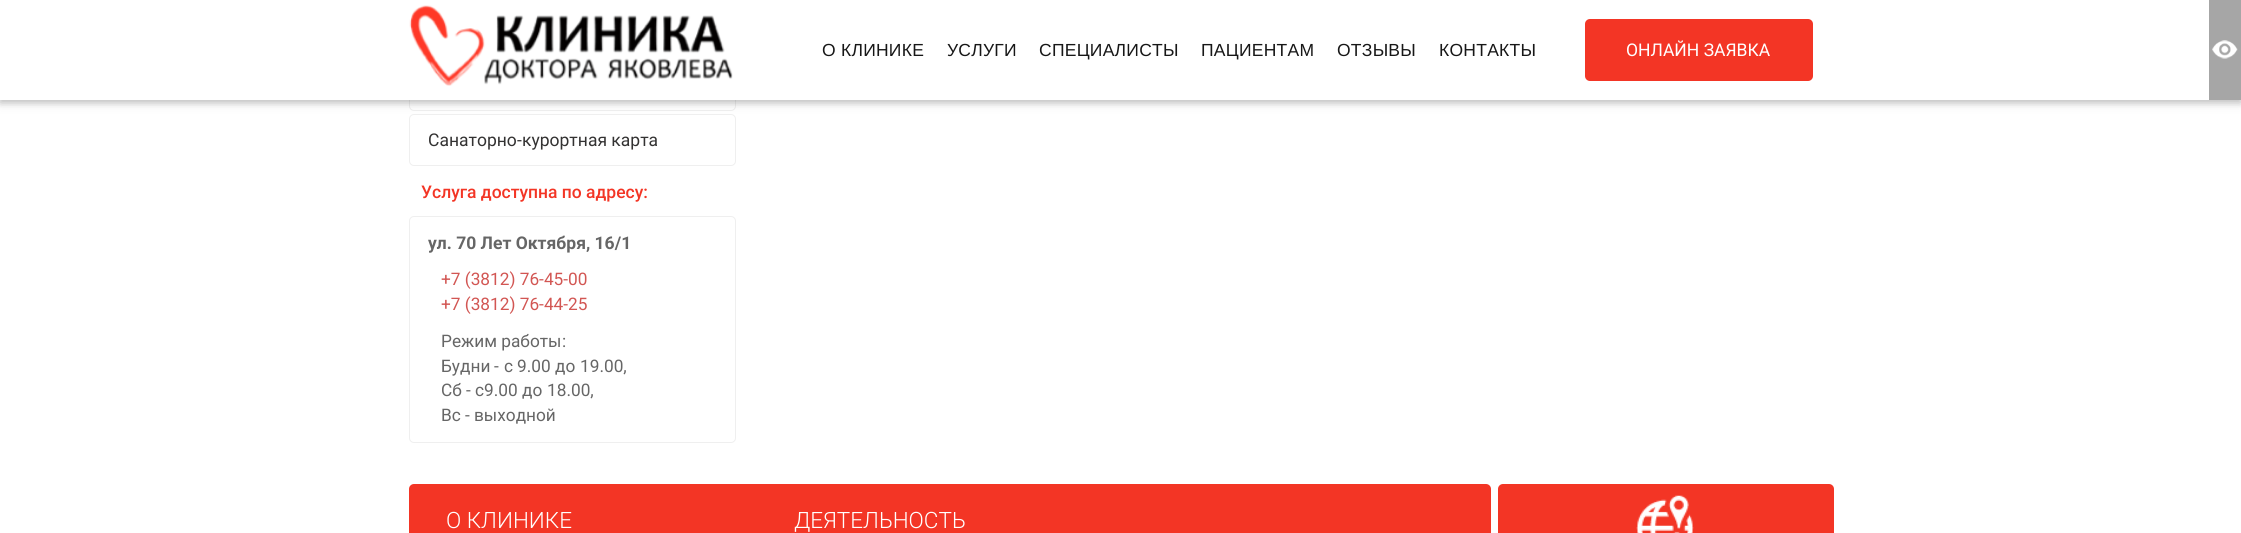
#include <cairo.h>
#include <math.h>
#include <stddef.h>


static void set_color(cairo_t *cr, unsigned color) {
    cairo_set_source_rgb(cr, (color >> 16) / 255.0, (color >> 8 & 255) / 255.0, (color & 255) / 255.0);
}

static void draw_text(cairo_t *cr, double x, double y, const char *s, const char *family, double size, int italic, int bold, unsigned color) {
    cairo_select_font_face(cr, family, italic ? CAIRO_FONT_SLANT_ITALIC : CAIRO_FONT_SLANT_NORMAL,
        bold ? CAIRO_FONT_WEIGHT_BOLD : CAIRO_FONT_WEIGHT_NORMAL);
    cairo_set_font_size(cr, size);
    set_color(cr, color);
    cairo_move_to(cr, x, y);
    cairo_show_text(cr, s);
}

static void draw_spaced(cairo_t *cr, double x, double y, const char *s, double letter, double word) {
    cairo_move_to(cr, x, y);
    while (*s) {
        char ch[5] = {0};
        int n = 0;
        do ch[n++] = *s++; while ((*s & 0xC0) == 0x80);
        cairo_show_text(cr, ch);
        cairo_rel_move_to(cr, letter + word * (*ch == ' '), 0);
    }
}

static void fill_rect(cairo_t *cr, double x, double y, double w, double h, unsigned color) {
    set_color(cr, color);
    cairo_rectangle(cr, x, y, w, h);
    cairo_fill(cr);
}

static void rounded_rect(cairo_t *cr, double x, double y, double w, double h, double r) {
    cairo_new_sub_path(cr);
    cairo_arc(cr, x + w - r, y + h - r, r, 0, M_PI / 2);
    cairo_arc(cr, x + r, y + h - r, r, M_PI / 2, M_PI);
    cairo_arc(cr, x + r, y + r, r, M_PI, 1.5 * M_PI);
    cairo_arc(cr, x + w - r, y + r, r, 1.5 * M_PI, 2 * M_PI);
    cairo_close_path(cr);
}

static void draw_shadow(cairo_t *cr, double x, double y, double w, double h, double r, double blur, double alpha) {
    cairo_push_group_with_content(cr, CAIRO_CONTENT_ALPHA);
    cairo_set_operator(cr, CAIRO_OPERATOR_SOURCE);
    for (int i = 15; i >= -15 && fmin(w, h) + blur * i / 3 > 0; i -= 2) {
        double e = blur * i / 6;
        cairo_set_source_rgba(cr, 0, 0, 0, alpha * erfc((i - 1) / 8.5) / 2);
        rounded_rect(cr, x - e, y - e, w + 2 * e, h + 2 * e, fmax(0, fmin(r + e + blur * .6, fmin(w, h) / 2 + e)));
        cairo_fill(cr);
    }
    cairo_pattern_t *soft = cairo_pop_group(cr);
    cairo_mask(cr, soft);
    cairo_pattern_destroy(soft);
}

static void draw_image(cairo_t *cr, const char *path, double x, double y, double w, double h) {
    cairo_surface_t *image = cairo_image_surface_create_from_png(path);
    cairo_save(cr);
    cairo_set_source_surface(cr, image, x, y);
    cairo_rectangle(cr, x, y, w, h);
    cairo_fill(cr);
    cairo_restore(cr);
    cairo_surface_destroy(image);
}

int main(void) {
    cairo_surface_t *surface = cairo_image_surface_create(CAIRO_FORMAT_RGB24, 2241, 533);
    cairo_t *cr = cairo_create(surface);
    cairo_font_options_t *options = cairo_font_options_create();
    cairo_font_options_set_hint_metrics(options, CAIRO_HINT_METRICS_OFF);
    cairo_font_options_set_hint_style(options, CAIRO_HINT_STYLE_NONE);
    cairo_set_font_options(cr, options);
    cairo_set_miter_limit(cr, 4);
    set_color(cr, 0xFFFFFF);
    cairo_paint(cr);
    rounded_rect(cr, 409.5, 59.5, 326, 51, 4.5);
    set_color(cr, 0xEFEFEF);
    cairo_set_line_width(cr, 1);
    cairo_stroke(cr);
    rounded_rect(cr, 409.5, 114.5, 326, 51, 4.5);
    cairo_stroke(cr);
    set_color(cr, 0x000000);
    draw_shadow(cr, 0, 3, 2241, 100, 0, 6, 0.12);
    draw_shadow(cr, 0, 3, 2241, 100, 0, 3, 0.16);
    fill_rect(cr, 0, 0, 2209, 100, 0xFFFFFF);
    draw_image(cr, "assets/img1.png", 409, 5, 324, 81);
    cairo_select_font_face(cr, "Liberation Sans", CAIRO_FONT_SLANT_NORMAL, CAIRO_FONT_WEIGHT_NORMAL);
    cairo_set_font_size(cr, 17.5);
    set_color(cr, 0x171717);
    draw_spaced(cr, 822, 56, "О КЛИНИКЕ", 0.25, 0);
    draw_spaced(cr, 947, 56, "УСЛУГИ", 0.25, 0);
    draw_spaced(cr, 1039, 56, "СПЕЦИАЛИСТЫ", 0.25, 0);
    draw_spaced(cr, 1201, 56, "ПАЦИЕНТАМ", 0.25, 0);
    draw_spaced(cr, 1337, 56, "ОТЗЫВЫ", 0.25, 0);
    draw_spaced(cr, 1439, 56, "КОНТАКТЫ", 0.25, 0);
    set_color(cr, 0xF33525);
    rounded_rect(cr, 1585, 19, 228, 62, 5);
    cairo_fill(cr);
    draw_text(cr, 1626, 56, "ОНЛАЙН ЗАЯВКА", "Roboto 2", 17.5, 0, 0, 0xFFFFFF);
    fill_rect(cr, 2209, 0, 32, 100, 0xA6A6A6);
    draw_image(cr, "assets/img2.png", 2212, 40, 26, 19);
    draw_text(cr, 428, 146, "Санаторно", "Roboto 2", 17.5, 0, 0, 0x333232);
    draw_text(cr, 517, 146, "-", "Roboto", 17.5, 0, 0, 0x333232);
    draw_text(cr, 522, 146, "курортная карта", "Roboto 2", 17.5, 0, 0, 0x333232);
    draw_text(cr, 421, 198, "Услуга доступна по адресу:", "Roboto Medium", 17.5, 0, 0, 0xF33525);
    rounded_rect(cr, 409.5, 216.5, 326, 226, 4.5);
    set_color(cr, 0xEFEFEF);
    cairo_stroke(cr);
    draw_text(cr, 428, 249, "ул. 70 Лет Октября, 16/1", "Roboto", 17.5, 0, 1, 0x666666);
    draw_text(cr, 441, 285, "+7 (3812) 76-45-00", "Roboto", 17.25, 0, 0, 0xD25653);
    draw_text(cr, 441, 310, "+7 (3812) 76-44-25", "Roboto", 17.25, 0, 0, 0xD25653);
    draw_text(cr, 441, 347, "Режим работы", "Roboto 2", 17.25, 0, 0, 0x666666);
    draw_text(cr, 562, 347, ":", "Roboto", 17.25, 0, 0, 0x666666);
    draw_text(cr, 441, 372, "Будни", "Roboto 2", 17.25, 0, 0, 0x666666);
    draw_text(cr, 494, 372, "-", "Roboto", 17.25, 0, 0, 0x666666);
    draw_text(cr, 504, 372, "с", "Roboto 2", 17.25, 0, 0, 0x666666);
    draw_text(cr, 517, 372, "9.00", "Roboto", 17.25, 0, 0, 0x666666);
    draw_text(cr, 555, 372, "до", "Roboto 2", 17.25, 0, 0, 0x666666);
    draw_text(cr, 580, 372, "19.00,", "Roboto", 17.25, 0, 0, 0x666666);
    draw_text(cr, 441, 396, "Сб", "Roboto 2", 17.25, 0, 0, 0x666666);
    draw_text(cr, 466, 396, "-", "Roboto", 17.25, 0, 0, 0x666666);
    draw_text(cr, 475, 396, "с", "Roboto 2", 17.25, 0, 0, 0x666666);
    draw_text(cr, 484, 396, "9.00", "Roboto", 17.25, 0, 0, 0x666666);
    draw_text(cr, 522, 396, "до", "Roboto 2", 17.25, 0, 0, 0x666666);
    draw_text(cr, 547, 396, "18.00,", "Roboto", 17.25, 0, 0, 0x666666);
    draw_text(cr, 441, 421, "Вс", "Roboto 2", 17.25, 0, 0, 0x666666);
    draw_text(cr, 465, 421, "-", "Roboto", 17.25, 0, 0, 0x666666);
    draw_text(cr, 474, 421, "выходной", "Roboto 2", 17.25, 0, 0, 0x666666);
    set_color(cr, 0xF33525);
    rounded_rect(cr, 409, 484, 1082, 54, 5);
    cairo_fill(cr);
    draw_text(cr, 446, 528, "О КЛИНИКЕ", "Roboto Light", 22.5, 0, 0, 0xFFFFFF);
    draw_text(cr, 794, 528, "ДЕЯТЕЛЬНОСТЬ", "Roboto Light", 22.5, 0, 0, 0xFFFFFF);
    set_color(cr, 0xF33525);
    rounded_rect(cr, 1498, 484, 336, 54, 5);
    cairo_fill(cr);
    draw_image(cr, "assets/img3.png", 1636, 495, 58, 38);
    cairo_surface_write_to_png(surface, "output.png");
    cairo_font_options_destroy(options);
    cairo_destroy(cr);
    cairo_surface_destroy(surface);
    return 0;
}
